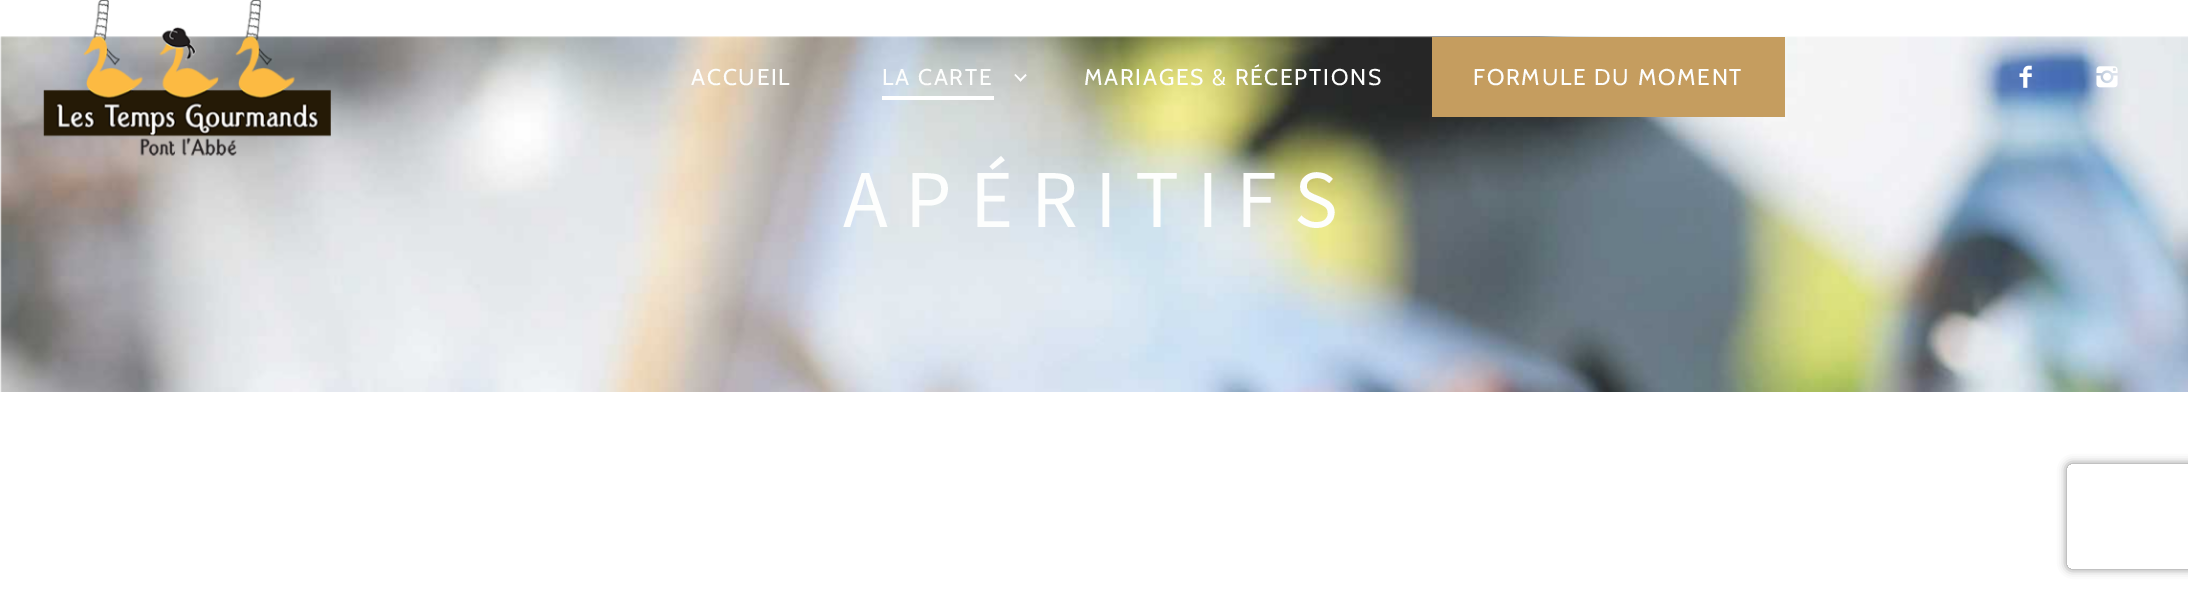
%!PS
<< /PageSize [2188 592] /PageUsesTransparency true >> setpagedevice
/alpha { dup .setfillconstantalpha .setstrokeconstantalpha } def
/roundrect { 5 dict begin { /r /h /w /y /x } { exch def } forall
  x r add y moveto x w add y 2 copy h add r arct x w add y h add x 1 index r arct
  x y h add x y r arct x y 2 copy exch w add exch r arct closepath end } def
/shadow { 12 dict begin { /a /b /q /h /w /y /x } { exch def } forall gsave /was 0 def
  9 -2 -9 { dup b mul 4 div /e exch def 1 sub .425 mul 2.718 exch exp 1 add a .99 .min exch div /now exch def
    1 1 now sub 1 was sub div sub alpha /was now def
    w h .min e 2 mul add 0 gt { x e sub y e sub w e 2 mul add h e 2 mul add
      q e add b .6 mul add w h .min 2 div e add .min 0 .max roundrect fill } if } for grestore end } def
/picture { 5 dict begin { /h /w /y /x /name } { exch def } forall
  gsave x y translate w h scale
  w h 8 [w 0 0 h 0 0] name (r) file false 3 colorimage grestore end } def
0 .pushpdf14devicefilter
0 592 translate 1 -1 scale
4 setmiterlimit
1 setgray
0 0 2188 592 rectfill
(img1.rgb) 0 36 2188 356 picture
(img2.rgb) 43 0 288 156 picture
/Cabin-Regular [22.75 0 0 -22.75 0 0] selectfont
0.992 0.996 0.992 setrgbcolor
691 85 moveto 1.75 0 (ACCUEIL) ashow
882 85 moveto 1.75 0 (LA CARTE) ashow
1 setgray
882 96 112 4 rectfill
newpath 1025.5 74 moveto 1026.5 75.5 lineto 1020.5 81.5 lineto 1019.5 80 lineto closepath fill
newpath 1015.5 74 moveto 1021.5 80 lineto 1020.5 81.5 lineto 1014.5 75 lineto closepath fill
0.992 0.996 0.992 setrgbcolor
1084 85 moveto 1.75 0 (MARIAGES & RÉCEPTIONS) ashow
0.773 0.616 0.373 setrgbcolor
1432 37 353 80 rectfill
0.992 0.996 0.992 setrgbcolor
1473 85 moveto 1.75 0 (FORMULE DU MOMENT) ashow
(img3.rgb) 2019 65 13 23 picture
(img4.rgb) 2096 66 22 22 picture
/SourceSansPro-Regular [82.25 0 0 -82.25 0 0] selectfont
843 227 moveto 17.75 0 (APÉRITIFS) ashow
gsave
newpath 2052 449 moveto 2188 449 lineto 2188 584 lineto 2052 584 lineto closepath 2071 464 moveto 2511 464 lineto 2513 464 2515 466 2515 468 curveto 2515 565 lineto 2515 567 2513 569 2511 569 curveto 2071 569 lineto 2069 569 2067 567 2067 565 curveto 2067 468 lineto 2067 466 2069 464 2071 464 curveto closepath eoclip newpath
0.502 setgray
2067 464 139 105 4 4.5 1 shadow
grestore
.poppdf14devicefilter showpage
